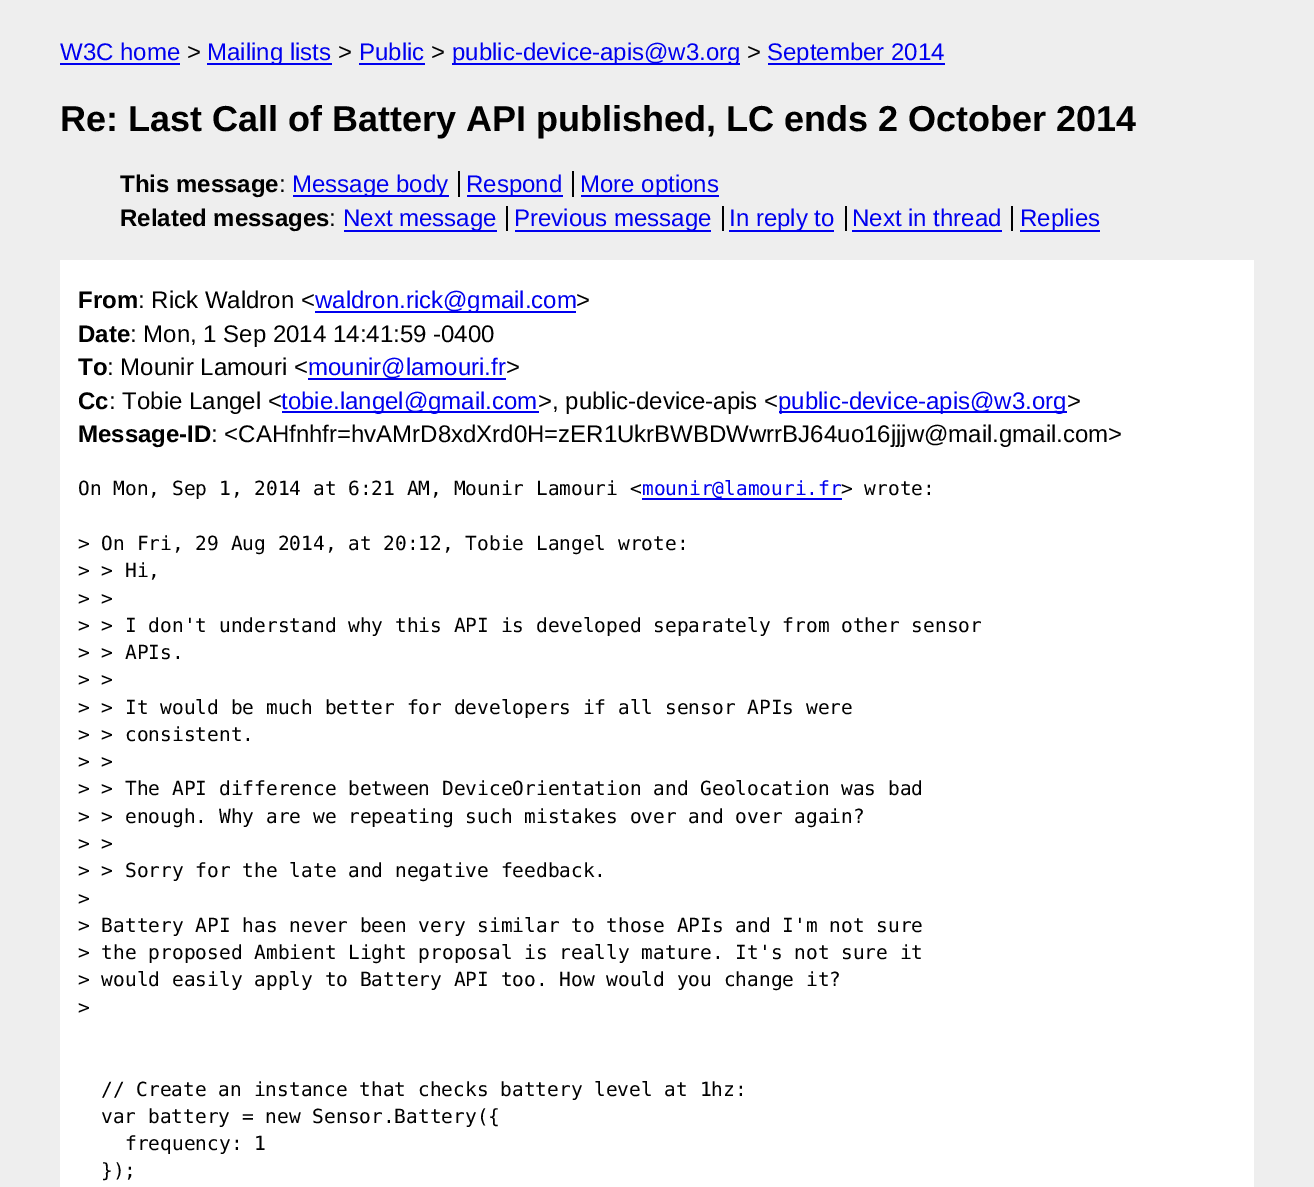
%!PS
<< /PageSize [1314 1187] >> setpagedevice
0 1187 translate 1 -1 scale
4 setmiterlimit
0.933 setgray
0 0 1314 1187 rectfill
/LiberationSans-Regular [24 0 0 -24 0 0] selectfont
0 0 0.933 setrgbcolor
60 60 moveto (W3C home) show
60 63 120 2 rectfill
0 setgray
187 60 moveto (>) show
0 0 0.933 setrgbcolor
207 63 125 2 rectfill
207 60 moveto (Mailing lists) show
0 setgray
338 60 moveto (>) show
0 0 0.933 setrgbcolor
359 60 moveto (Public) show
359 63 66 2 rectfill
0 setgray
431 60 moveto (>) show
0 0 0.933 setrgbcolor
452 63 288 2 rectfill
452 60 moveto (public-device-apis@w3.org) show
0 setgray
747 60 moveto (>) show
0 0 0.933 setrgbcolor
768 63 177 2 rectfill
767 60 moveto (September 2014) show
/LiberationSans-Bold [36 0 0 -36 0 0] selectfont
0 setgray
60 131 moveto (Re: Last Call of Battery API published, LC ends 2 October 2014) show
/LiberationSans-Bold [24 0 0 -24 0 0] selectfont
120 192 moveto (This message) show
/LiberationSans-Regular [24 0 0 -24 0 0] selectfont
279 192 moveto (:) show
0 0 0.933 setrgbcolor
293 195 156 2 rectfill
292 192 moveto (Message body) show
467 195 96 2 rectfill
466 192 moveto (Respond) show
0 setgray
458 171 2 26 rectfill
0 0 0.933 setrgbcolor
581 195 138 2 rectfill
580 192 moveto (More options) show
0 setgray
572 171 2 26 rectfill
/LiberationSans-Bold [24 0 0 -24 0 0] selectfont
120 226 moveto (Related messages) show
/LiberationSans-Regular [24 0 0 -24 0 0] selectfont
329 226 moveto (:) show
0 0 0.933 setrgbcolor
344 230 153 2 rectfill
343 226 moveto (Next message) show
515 230 196 2 rectfill
514 226 moveto (Previous message) show
0 setgray
506 206 2 25 rectfill
0 0 0.933 setrgbcolor
729 230 105 2 rectfill
729 226 moveto (In reply to) show
0 setgray
722 206 2 25 rectfill
0 0 0.933 setrgbcolor
852 226 moveto (Next in thread) show
0 setgray
845 206 2 25 rectfill
0 0 0.933 setrgbcolor
852 230 150 2 rectfill
1020 230 80 2 rectfill
1020 226 moveto (Replies) show
0 setgray
1011 206 2 25 rectfill
1 setgray
60 260 1194 927 rectfill
/LiberationSans-Bold [24 0 0 -24 0 0] selectfont
0 setgray
78 308 moveto (From) show
/LiberationSans-Regular [24 0 0 -24 0 0] selectfont
138 308 moveto (: Rick Waldron <) show
0 0 0.933 setrgbcolor
315 311 261 2 rectfill
315 308 moveto (waldron.rick@gmail.com) show
0 setgray
576 308 moveto (>) show
/LiberationSans-Bold [24 0 0 -24 0 0] selectfont
78 342 moveto (Date) show
/LiberationSans-Regular [24 0 0 -24 0 0] selectfont
130 342 moveto (: Mon, 1 Sep 2014 14:41:59 -0400) show
/LiberationSans-Bold [24 0 0 -24 0 0] selectfont
78 375 moveto (To) show
/LiberationSans-Regular [24 0 0 -24 0 0] selectfont
107 375 moveto (: Mounir Lamouri <) show
0 0 0.933 setrgbcolor
308 378 198 2 rectfill
308 375 moveto (mounir@lamouri.fr) show
0 setgray
506 375 moveto (>) show
/LiberationSans-Bold [24 0 0 -24 0 0] selectfont
78 409 moveto (Cc) show
/LiberationSans-Regular [24 0 0 -24 0 0] selectfont
109 409 moveto (: Tobie Langel <) show
0 0 0.933 setrgbcolor
282 411 257 2 rectfill
281 409 moveto (tobie.langel@gmail.com) show
0 setgray
538 409 moveto (>, public-device-apis <) show
0 0 0.933 setrgbcolor
779 411 288 2 rectfill
778 409 moveto (public-device-apis@w3.org) show
0 setgray
1067 409 moveto (>) show
/LiberationSans-Bold [24 0 0 -24 0 0] selectfont
78 442 moveto (Message-ID) show
/LiberationSans-Regular [24 0 0 -24 0 0] selectfont
211 442 moveto (: <CAHfnhfr=hvAMrD8xdXrd0H=zER1UkrBWBDWwrrBJ64uo16jjjw@mail.gmail.com>) show
/DejaVuSansMono-Regular [19.5 0 0 -19.5 0 0] selectfont
78 495 moveto (On Mon, Sep 1, 2014 at 6:21 AM, Mounir Lamouri <) show
0 0 0.933 setrgbcolor
642 498 200 2 rectfill
642 495 moveto (mounir@lamouri.fr) show
0 setgray
841 495 moveto (> wrote:) show
78 550 moveto (> On Fri, 29 Aug 2014, at 20:12, Tobie Langel wrote:) show
78 577 moveto (> > Hi,) show
78 605 moveto (> >) show
78 632 moveto (> > I don't understand why this API is developed separately from other sensor) show
78 659 moveto (> > APIs.) show
78 686 moveto (> >) show
78 714 moveto (> > It would be much better for developers if all sensor APIs were) show
78 741 moveto (> > consistent.) show
78 768 moveto (> >) show
78 795 moveto (> > The API difference between DeviceOrientation and Geolocation was bad) show
78 823 moveto (> > enough. Why are we repeating such mistakes over and over again?) show
78 850 moveto (> >) show
78 877 moveto (> > Sorry for the late and negative feedback.) show
78 905 moveto (>) show
78 932 moveto (> Battery API has never been very similar to those APIs and I'm not sure) show
78 959 moveto (> the proposed Ambient Light proposal is really mature. It's not sure it) show
78 986 moveto (> would easily apply to Battery API too. How would you change it?) show
78 1014 moveto (>) show
101 1096 moveto (// Create an instance that checks battery level at 1hz:) show
101 1123 moveto (var battery = new Sensor.Battery\({) show
125 1150 moveto (frequency: 1) show
101 1177 moveto (}\);) show
showpage
